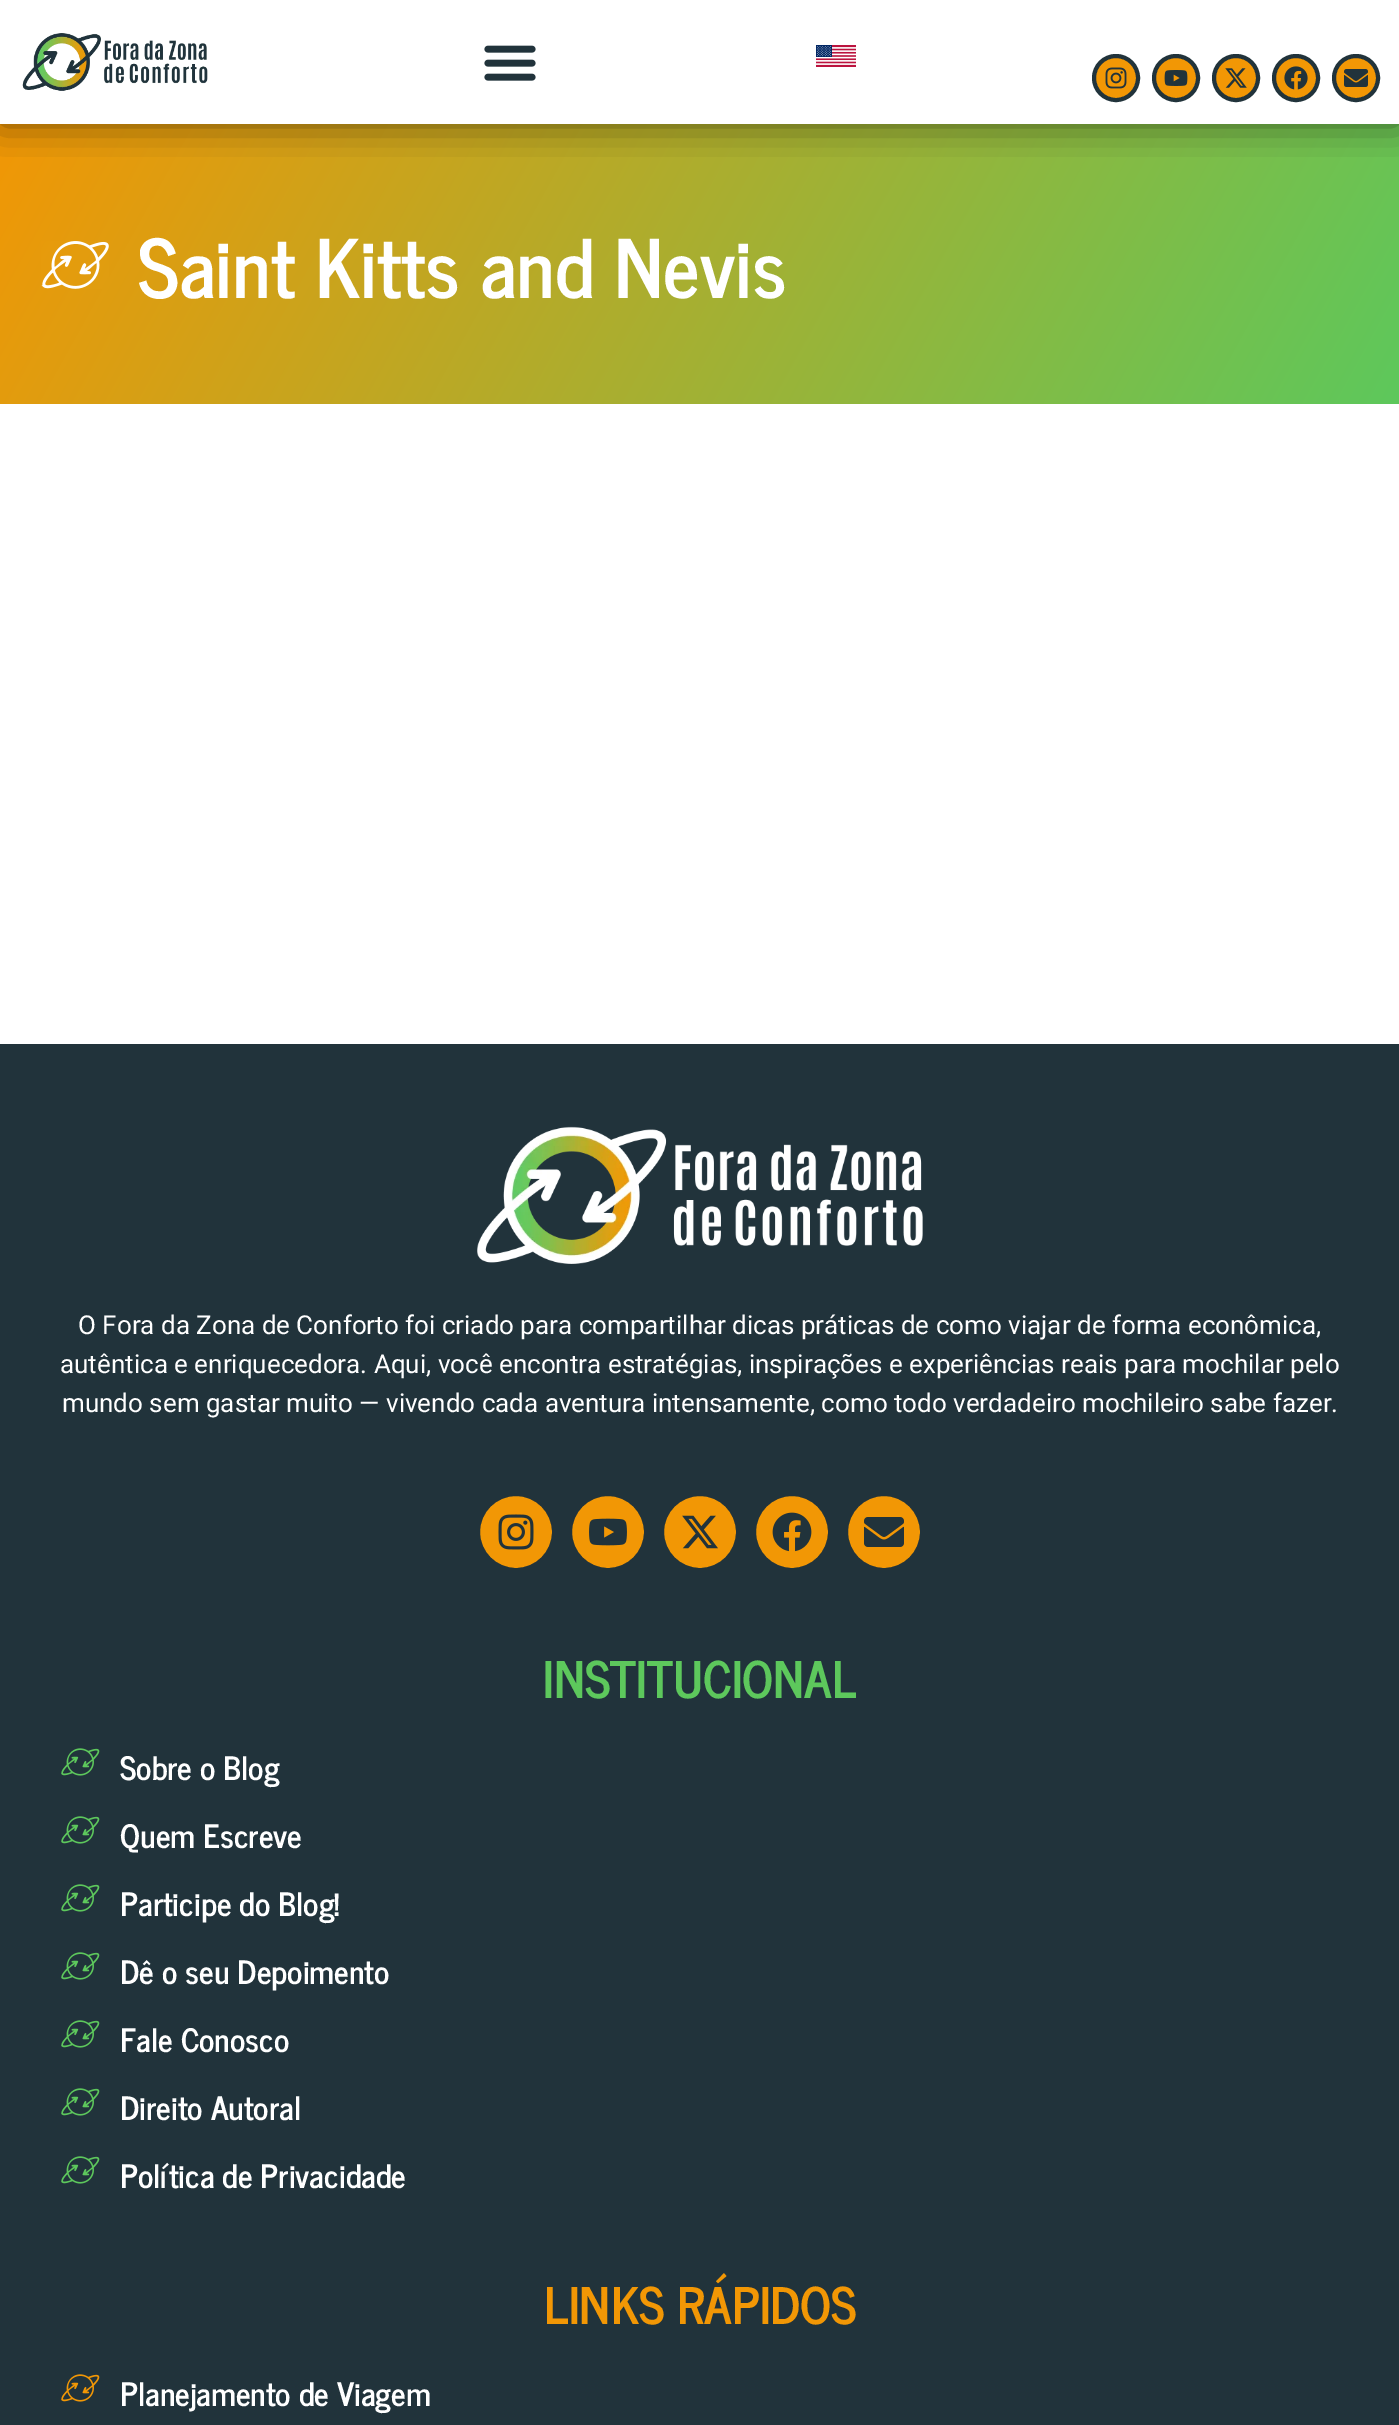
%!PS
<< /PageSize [1399 2425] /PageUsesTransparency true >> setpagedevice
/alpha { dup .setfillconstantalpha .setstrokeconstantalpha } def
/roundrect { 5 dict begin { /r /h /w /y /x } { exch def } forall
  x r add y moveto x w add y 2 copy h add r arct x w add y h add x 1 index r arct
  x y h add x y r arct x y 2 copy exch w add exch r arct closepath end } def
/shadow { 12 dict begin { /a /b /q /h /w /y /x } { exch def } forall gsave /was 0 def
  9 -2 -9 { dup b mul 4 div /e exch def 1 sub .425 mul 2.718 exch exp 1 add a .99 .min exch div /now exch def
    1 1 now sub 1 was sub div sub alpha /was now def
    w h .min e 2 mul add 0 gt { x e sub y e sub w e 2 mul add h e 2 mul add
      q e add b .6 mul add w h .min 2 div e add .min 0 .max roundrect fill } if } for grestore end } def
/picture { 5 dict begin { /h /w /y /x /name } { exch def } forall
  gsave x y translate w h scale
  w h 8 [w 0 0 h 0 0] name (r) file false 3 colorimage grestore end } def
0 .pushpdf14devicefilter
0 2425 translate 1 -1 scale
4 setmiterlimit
1 setgray
0 0 1399 2425 rectfill
gsave newpath 0 124 moveto 1399 124 lineto 1399 404 lineto 0 404 lineto closepath clip newpath
<< /ShadingType 2 /ColorSpace /DeviceRGB /Coords [1295 594 105 -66] /Extend [true true] /Function << /FunctionType 2 /Domain [0 1] /C0 [0.365 0.784 0.361] /C1 [0.949 0.592 0.02] /N 1 >> >> shfill grestore
gsave
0 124 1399 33 rectclip
0 setgray
0 0 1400 124 0 19 0.5 shadow
grestore
(img1.rgb) 22 33 186 58 picture
(img2.rgb) 484 45 52 36 picture
(img3.rgb) 816 45 40 22 picture
0.949 0.592 0.02 setrgbcolor
newpath 1116 78 22 0 360 arc closepath gsave fill grestore
0.129 0.2 0.231 setrgbcolor
4 setlinewidth
stroke
(img4.rgb) 1105 67 22 22 picture
0.949 0.592 0.02 setrgbcolor
newpath 1176 78 22 0 360 arc closepath gsave fill grestore
0.129 0.2 0.231 setrgbcolor
stroke
(img5.rgb) 1164 70 24 16 picture
0.949 0.592 0.02 setrgbcolor
newpath 1236 78 22 0 360 arc closepath gsave fill grestore
0.129 0.2 0.231 setrgbcolor
stroke
(img6.rgb) 1225 68 22 20 picture
0.949 0.592 0.02 setrgbcolor
newpath 1296 78 22 0 360 arc closepath gsave fill grestore
0.129 0.2 0.231 setrgbcolor
stroke
(img7.rgb) 1284 66 24 24 picture
0.949 0.592 0.02 setrgbcolor
newpath 1356 78 22 0 360 arc closepath gsave fill grestore
0.129 0.2 0.231 setrgbcolor
stroke
(img8.rgb) 1344 69 24 18 picture
(img9.rgb) 41 241 68 48 picture
/NewsCycle-Bold [80 0 0 -80 0 0] selectfont
1 setgray
138 298 moveto (Saint Kitts and Nevis) show
0.129 0.2 0.231 setrgbcolor
0 1044 1399 1381 rectfill
(img10.rgb) 477 1126 446 138 picture
/Roboto-Regular [26 0 0 -26 0 0] selectfont
1 setgray
78 1334 moveto (O Fora da Zona de Conforto foi criado para compartilhar dicas práticas de como viajar de forma econômica,) show
60 1373 moveto (autêntica e enriquecedora. Aqui, você encontra estratégias, inspirações e experiências reais para mochilar pelo) show
62 1412 moveto (mundo sem gastar muito — vivendo cada aventura intensamente, como todo verdadeiro mochileiro sabe fazer.) show
0.949 0.592 0.02 setrgbcolor
newpath 516 1532 38 0 360 arc closepath gsave fill grestore
0.129 0.2 0.231 setrgbcolor
stroke
(img11.rgb) 498 1514 36 36 picture
0.949 0.592 0.02 setrgbcolor
newpath 608 1532 38 0 360 arc closepath gsave fill grestore
0.129 0.2 0.231 setrgbcolor
stroke
(img12.rgb) 589 1518 38 28 picture
0.949 0.592 0.02 setrgbcolor
newpath 700 1532 38 0 360 arc closepath gsave fill grestore
0.129 0.2 0.231 setrgbcolor
stroke
(img13.rgb) 682 1515 36 34 picture
0.949 0.592 0.02 setrgbcolor
newpath 792 1532 38 0 360 arc closepath gsave fill grestore
0.129 0.2 0.231 setrgbcolor
stroke
(img14.rgb) 772 1512 40 40 picture
0.949 0.592 0.02 setrgbcolor
newpath 884 1532 38 0 360 arc closepath gsave fill grestore
0.129 0.2 0.231 setrgbcolor
stroke
(img15.rgb) 864 1517 40 30 picture
/NewsCycle-Bold [50 0 0 -50 0 0] selectfont
0.365 0.784 0.361 setrgbcolor
543 1698 moveto (INSTITUCIONAL) show
(img16.rgb) 61 1748 39 28 picture
/NewsCycle-Bold [32 0 0 -32 0 0] selectfont
1 setgray
120 1780 moveto (Sobre o Blog) show
(img16.rgb) 61 1816 39 28 picture
120 1848 moveto (Quem Escreve) show
(img16.rgb) 61 1884 39 28 picture
120 1916 moveto (Participe do Blog!) show
(img16.rgb) 61 1952 39 28 picture
120 1984 moveto (Dê o seu Depoimento) show
(img16.rgb) 61 2020 39 28 picture
120 2052 moveto (Fale Conosco) show
(img16.rgb) 61 2088 39 28 picture
120 2120 moveto (Direito Autoral) show
(img16.rgb) 61 2156 39 28 picture
120 2188 moveto (Política de Privacidade) show
/NewsCycle-Bold [50 0 0 -50 0 0] selectfont
0.949 0.592 0.02 setrgbcolor
544 2324 moveto (LINKS RÁPIDOS) show
(img17.rgb) 61 2374 39 28 picture
/NewsCycle-Bold [32 0 0 -32 0 0] selectfont
1 setgray
120 2406 moveto (Planejamento de Viagem) show
.poppdf14devicefilter showpage
